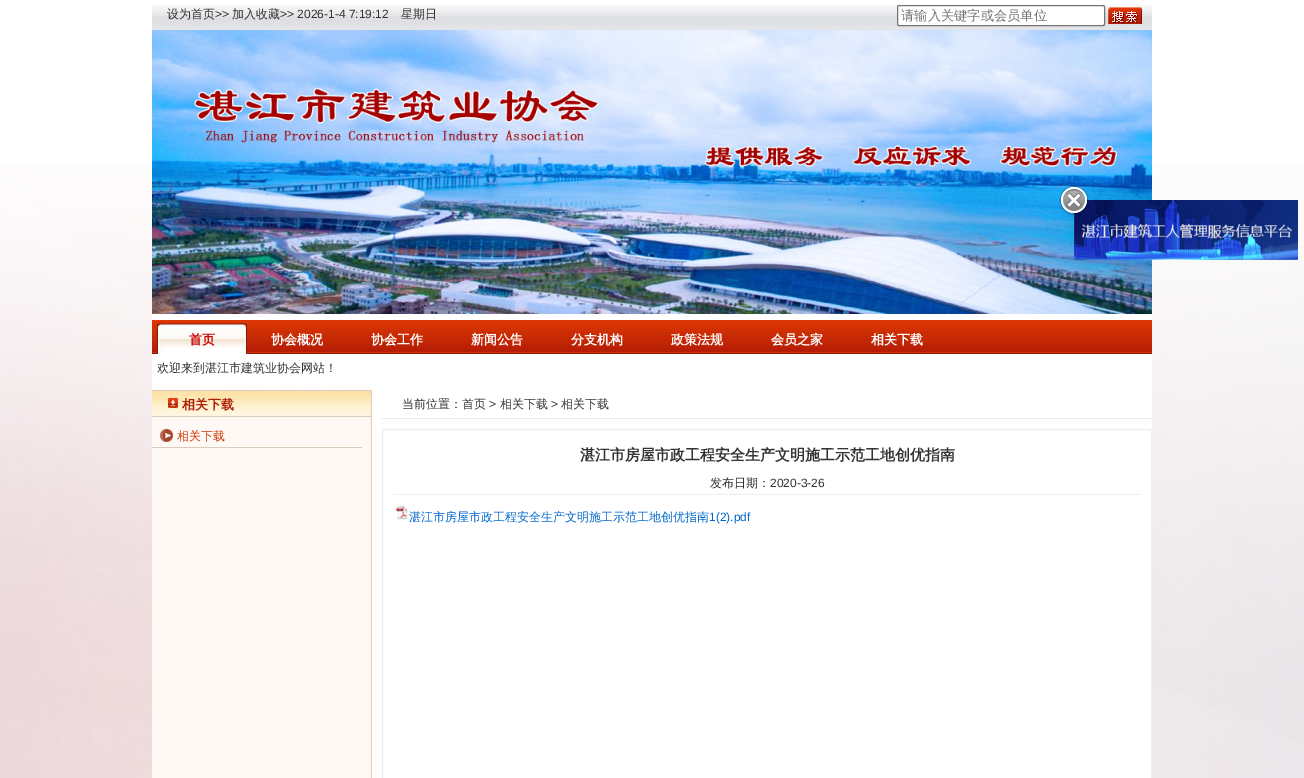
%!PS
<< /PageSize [1304 778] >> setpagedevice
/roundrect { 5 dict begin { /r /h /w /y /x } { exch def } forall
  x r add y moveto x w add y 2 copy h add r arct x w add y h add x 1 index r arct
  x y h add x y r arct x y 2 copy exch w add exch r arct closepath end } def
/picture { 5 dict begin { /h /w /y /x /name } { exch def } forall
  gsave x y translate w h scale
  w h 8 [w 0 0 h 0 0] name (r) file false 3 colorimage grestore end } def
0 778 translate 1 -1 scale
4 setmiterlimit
1 setgray
0 0 1304 778 rectfill
(img1.rgb) 0 164 1304 614 picture
152 164 1000 614 rectfill
(img2.rgb) 152 4 1000 26 picture
/WenQuanYiZenHei-Medium [12 0 0 -12 0 0] selectfont
0.2 setgray
167 18 moveto (设为首页) show
/LiberationSans-Regular [12 0 0 -12 0 0] selectfont
215 18 moveto (>>) show
/WenQuanYiZenHei-Medium [12 0 0 -12 0 0] selectfont
232 18 moveto (加入收藏) show
/LiberationSans-Regular [12 0 0 -12 0 0] selectfont
280 18 moveto (>> 2026-1-4 7:19:12) show
/WenQuanYiZenHei-Medium [12 0 0 -12 0 0] selectfont
401 18 moveto (星期日) show
1 setgray
897.5 5.5 207 20 1.5 roundrect gsave fill grestore
0.463 setgray
stroke
/WenQuanYiZenHei-Medium [13.25 0 0 -13.25 0 0] selectfont
0.459 setgray
901 20 moveto (请输入关键字或会员单位) show
(img3.rgb) 1108 7 34 17 picture
(img4.rgb) 152 30 1000 284 picture
(img5.rgb) 152 320 1000 34 picture
(img6.rgb) 157 320 90 34 picture
/WenQuanYiZenHei-Bold [13 0 0 -13 0 0] selectfont
0.8 0 0 setrgbcolor
189 344 moveto (首页) show
/WenQuanYiZenHei-Medium [12 0 0 -12 0 0] selectfont
0.2 setgray
157 372 moveto (欢迎来到湛江市建筑业协会网站！) show
/WenQuanYiZenHei-Bold [13 0 0 -13 0 0] selectfont
1 setgray
271 344 moveto (协会概况) show
371 344 moveto (协会工作) show
471 344 moveto (新闻公告) show
571 344 moveto (分支机构) show
671 344 moveto (政策法规) show
771 344 moveto (会员之家) show
871 344 moveto (相关下载) show
(img7.rgb) 152 417 220 361 picture
(img8.rgb) 152 390 220 27 picture
0.682 0.11 0.012 setrgbcolor
182 409 moveto (相关下载) show
(img9.rgb) 152 429 210 19 picture
/WenQuanYiZenHei-Medium [12 0 0 -12 0 0] selectfont
0.827 0.208 0.024 setrgbcolor
177 440 moveto (相关下载) show
0.925 setgray
382 418 770 1 rectfill
0.2 setgray
402 408 moveto (当前位置：首页) show
/LiberationSans-Regular [12 0 0 -12 0 0] selectfont
489 408 moveto (>) show
/WenQuanYiZenHei-Medium [12 0 0 -12 0 0] selectfont
500 408 moveto (相关下载) show
/LiberationSans-Regular [12 0 0 -12 0 0] selectfont
551 408 moveto (>) show
/WenQuanYiZenHei-Medium [12 0 0 -12 0 0] selectfont
561 408 moveto (相关下载) show
0.933 setgray
382.5 429.5 769 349 rectstroke
/WenQuanYiZenHei-Bold [15 0 0 -15 0 0] selectfont
0.2 setgray
580 460 moveto (湛江市房屋市政工程安全生产文明施工示范工地创优指南) show
0.933 setgray
393 494 748 1 rectfill
/WenQuanYiZenHei-Medium [12 0 0 -12 0 0] selectfont
0.2 setgray
710 487 moveto (发布日期：) show
/LiberationSans-Regular [12 0 0 -12 0 0] selectfont
770 487 moveto (2020-3-26) show
(img10.rgb) 396 505 12 15 picture
/WenQuanYiZenHei-Medium [12 0 0 -12 0 0] selectfont
0 0.4 0.8 setrgbcolor
409 521 moveto (湛江市房屋市政工程安全生产文明施工示范工地创优指南) show
/LiberationSans-Regular [12 0 0 -12 0 0] selectfont
709 521 moveto (1\(2\).pdf) show
(img12.rgb) 1074 200 224 60 picture
(img11.rgb) 1059 186 30 31 picture
showpage
